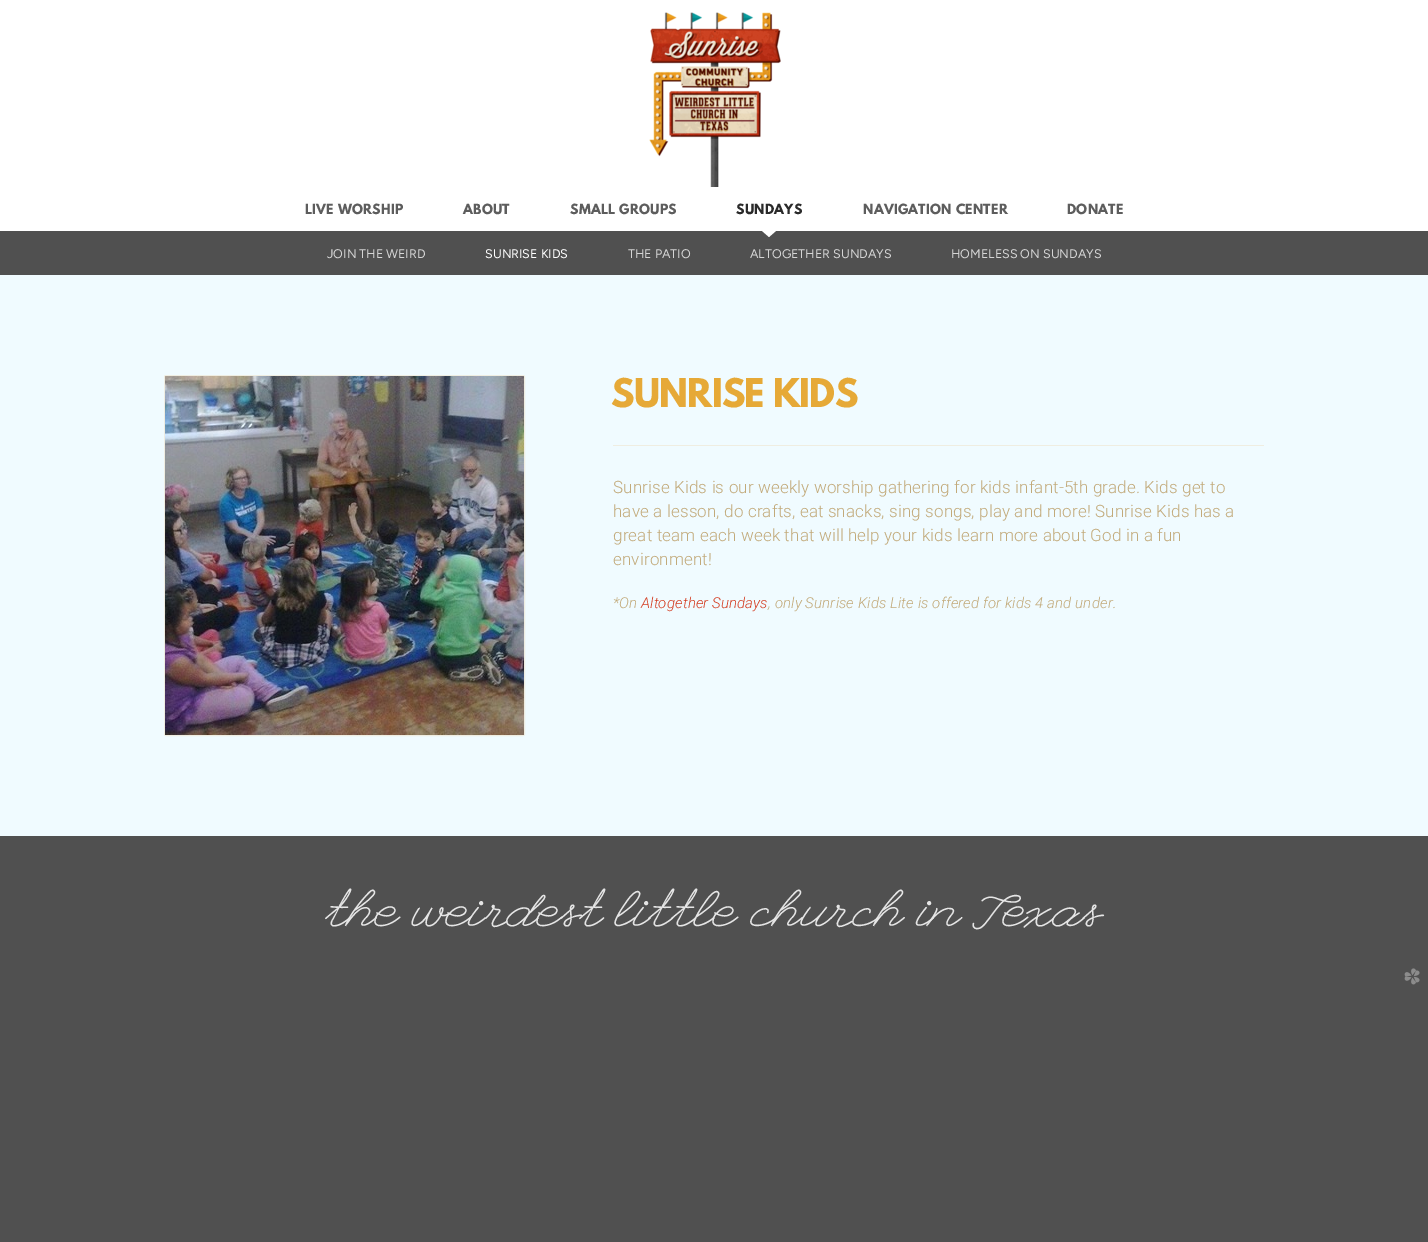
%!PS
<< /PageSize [1428 1242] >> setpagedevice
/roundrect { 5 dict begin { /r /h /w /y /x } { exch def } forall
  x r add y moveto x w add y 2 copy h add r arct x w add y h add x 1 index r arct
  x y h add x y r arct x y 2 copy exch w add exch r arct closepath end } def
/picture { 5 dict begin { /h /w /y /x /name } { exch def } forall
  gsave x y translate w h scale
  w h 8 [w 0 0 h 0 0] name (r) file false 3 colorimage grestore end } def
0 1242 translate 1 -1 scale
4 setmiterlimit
0.314 setgray
0 0 1428 1242 rectfill
1 setgray
0 0 1428 231 rectfill
(img1.rgb) 649 12 132 175 picture
/LeagueSpartan-Bold [12.5 0 0 -12.5 0 0] selectfont
0.365 setgray
305 214 moveto 0.25 0 (LIVE WORSHIP) ashow
463 214 moveto 0.25 0 (ABOUT) ashow
570 214 moveto 0.25 0 (SMALL GROUPS) ashow
0.165 setgray
736 214 moveto 0.25 0 (SUNDAYS) ashow
1 setgray
newpath 761 230 moveto 777 230 lineto 769 237 lineto closepath fill
0.365 setgray
863 214 moveto 0.25 0 (NAVIGATION CENTER) ashow
1067 214 moveto 0.25 0 (DONATE) ashow
/Figtree-Light [12.5 0 0 -12.5 0 0] selectfont
0.835 setgray
327 258 moveto (JOIN THE WEIRD) show
1 setgray
485 258 moveto (SUNRISE KIDS) show
0.835 setgray
628 258 moveto (THE PATIO) show
750 258 moveto (ALTOGETHER SUNDAYS) show
951 258 moveto (HOMELESS ON SUNDAYS) show
0.941 0.984 1 setrgbcolor
0 275 1428 561 rectfill
0.937 0.929 0.882 setrgbcolor
164.5 375.5 360 360 1.5 roundrect stroke
(img2.rgb) 165 376 359 359 picture
613 445 651 1 rectfill
/LeagueSpartan-Bold [35 0 0 -35 0 0] selectfont
0.902 0.663 0.216 setrgbcolor
611 407 moveto -0.75 0 (SUNRISE KIDS) ashow
/Roboto-Light [17 0 0 -17 0 0] selectfont
0.761 0.667 0.478 setrgbcolor
613 493 moveto 0.15 0 (Sunrise Kids is our weekly worship gathering for kids infant-5th grade. Kids get to) ashow
613 517 moveto 0.15 0 (have a lesson, do crafts, eat snacks, sing songs, play and more! Sunrise Kids has a) ashow
613 541 moveto 0.15 0 (great team each week that will help your kids learn more about God in a fun) ashow
613 565 moveto 0.15 0 (environment!) ashow
/Roboto-LightItalic [15 0 0 -15 0 0] selectfont
613 608 moveto 0.15 0 (*On) ashow
0.831 0.239 0.133 setrgbcolor
641 608 moveto 0.15 0 (Altogether Sundays) ashow
0.761 0.667 0.478 setrgbcolor
768 608 moveto 0.15 0 (, only Sunrise Kids Lite is offered for kids 4 and under.) ashow
/LeagueScript-Bold [34 0 0 -34 0 0] selectfont
0.898 setgray
326 926 moveto 0.15 0 (the weirdest little church in Texas) ashow
(img3.rgb) 1404 968 16 17 picture
showpage
